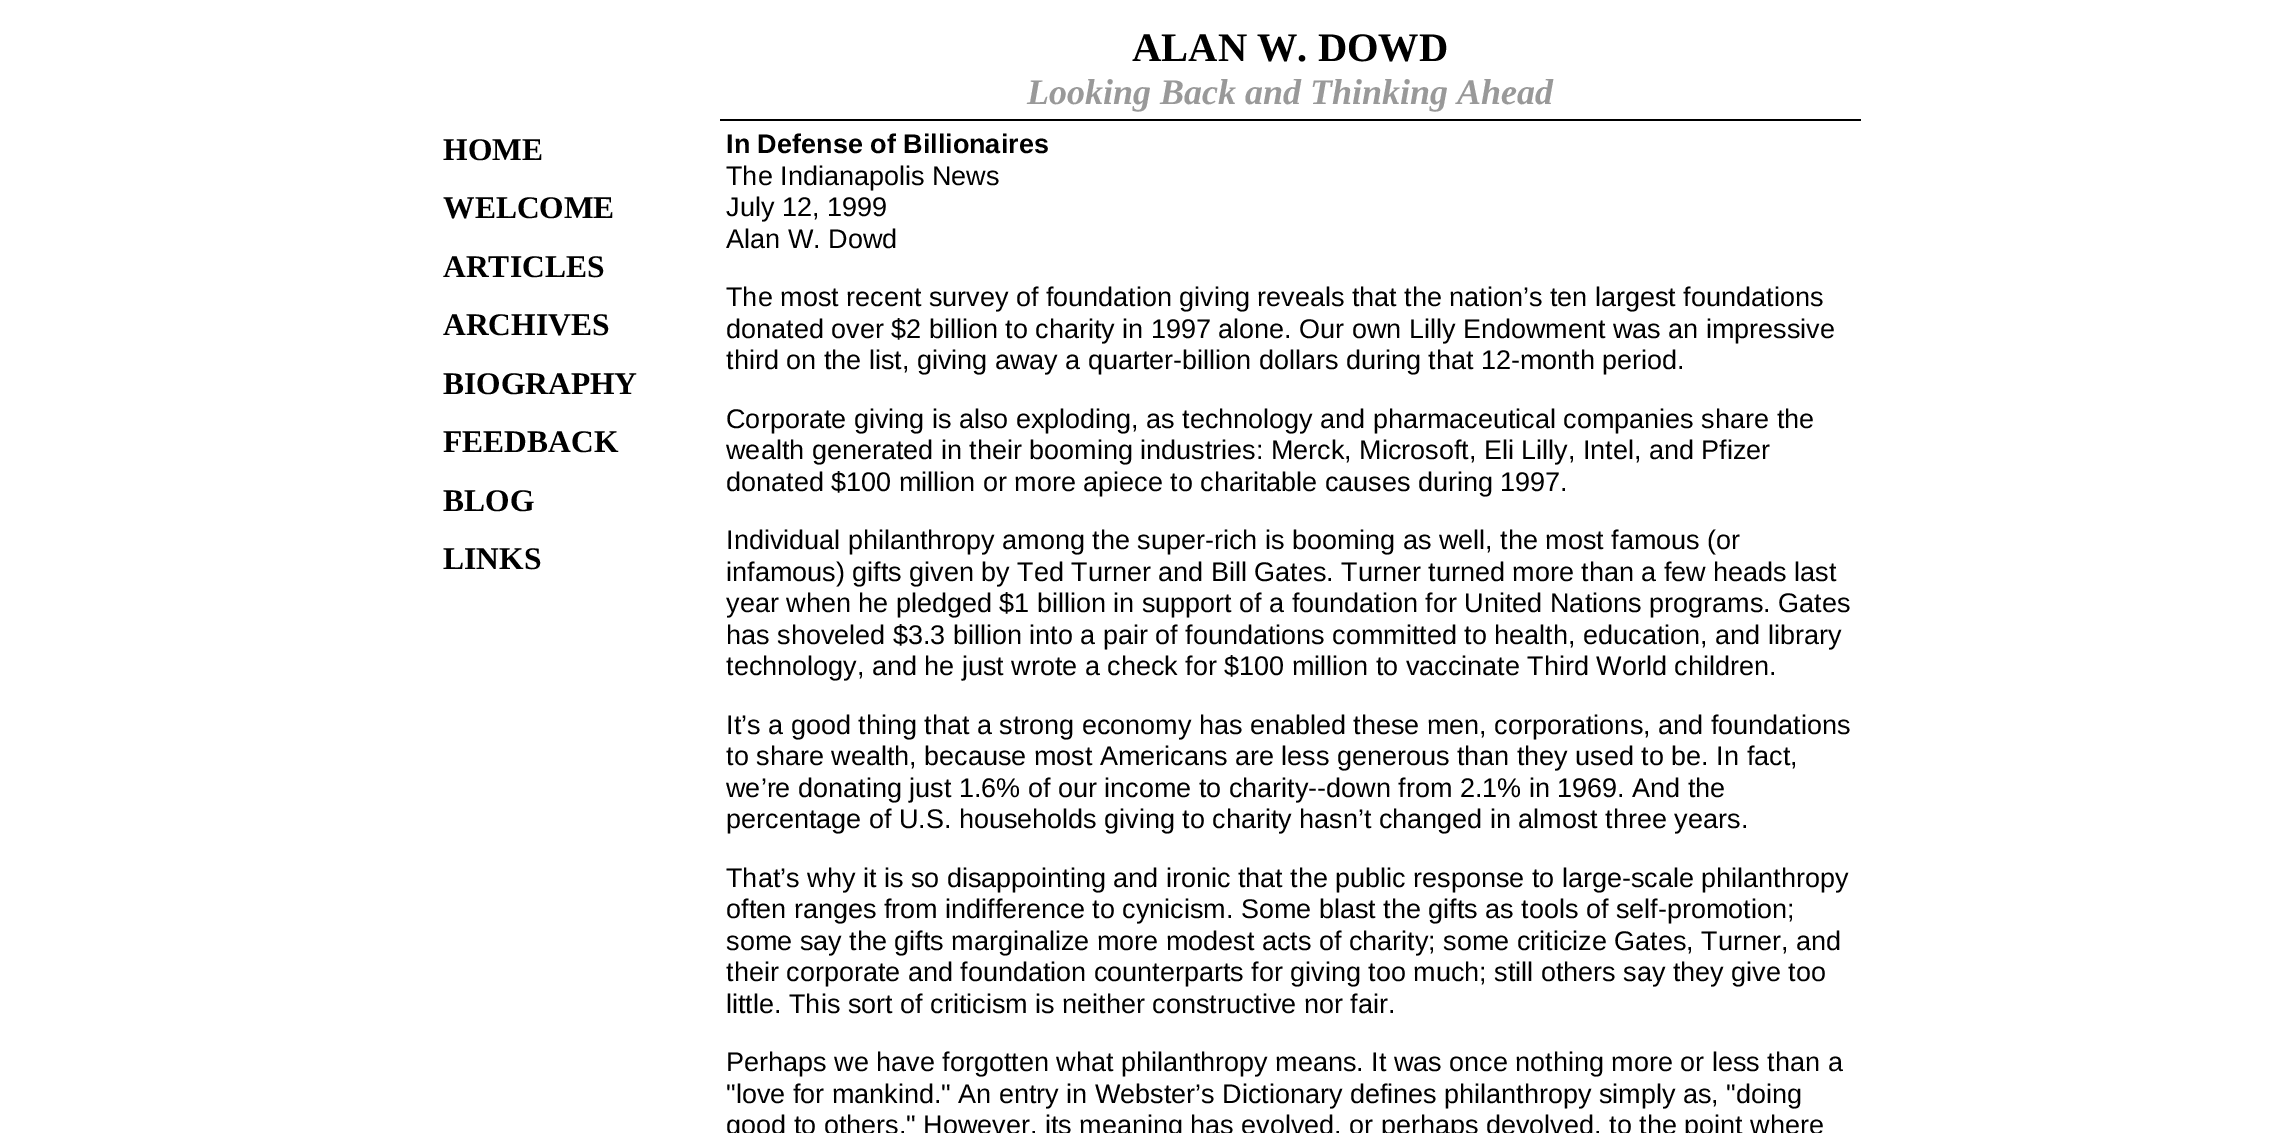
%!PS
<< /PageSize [2289 1133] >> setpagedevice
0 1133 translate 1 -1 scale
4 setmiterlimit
1 setgray
0 0 2289 1133 rectfill
/LiberationSerif-Bold [40.5 0 0 -40.5 0 0] selectfont
0 setgray
1132 61 moveto (ALAN W. DOWD) show
/LiberationSerif-BoldItalic [36 0 0 -36 0 0] selectfont
0.6 setgray
1027 104 moveto (Looking Back and Thinking Ahead) show
/LiberationSerif-Bold [31.5 0 0 -31.5 0 0] selectfont
0 setgray
443 160 moveto (HOME) show
443 218 moveto (WELCOME) show
443 277 moveto (ARTICLES) show
443 335 moveto (ARCHIVES) show
443 394 moveto (BIOGRAPHY) show
443 452 moveto (FEEDBACK) show
443 511 moveto (BLOG) show
443 569 moveto (LINKS) show
720 119 1141 2 rectfill
/LiberationSans-Bold [27 0 0 -27 0 0] selectfont
726 153 moveto (In Defense of Billionaires) show
/LiberationSans-Regular [27 0 0 -27 0 0] selectfont
726 185 moveto (The Indianapolis News) show
726 216 moveto (July 12, 1999) show
726 248 moveto (Alan W. Dowd) show
726 306 moveto (The most recent survey of foundation giving reveals that the nation’s ten largest foundations) show
726 338 moveto (donated over $2 billion to charity in 1997 alone. Our own Lilly Endowment was an impressive) show
726 369 moveto (third on the list, giving away a quarter-billion dollars during that 12-month period.) show
726 428 moveto (Corporate giving is also exploding, as technology and pharmaceutical companies share the) show
726 459 moveto (wealth generated in their booming industries: Merck, Microsoft, Eli Lilly, Intel, and Pfizer) show
726 491 moveto (donated $100 million or more apiece to charitable causes during 1997.) show
726 549 moveto (Individual philanthropy among the super-rich is booming as well, the most famous \(or) show
726 581 moveto (infamous\) gifts given by Ted Turner and Bill Gates. Turner turned more than a few heads last) show
726 612 moveto (year when he pledged $1 billion in support of a foundation for United Nations programs. Gates) show
726 644 moveto (has shoveled $3.3 billion into a pair of foundations committed to health, education, and library) show
726 675 moveto (technology, and he just wrote a check for $100 million to vaccinate Third World children.) show
726 734 moveto (It’s a good thing that a strong economy has enabled these men, corporations, and foundations) show
726 765 moveto (to share wealth, because most Americans are less generous than they used to be. In fact,) show
726 797 moveto (we’re donating just 1.6% of our income to charity--down from 2.1% in 1969. And the) show
726 828 moveto (percentage of U.S. households giving to charity hasn’t changed in almost three years.) show
726 887 moveto (That’s why it is so disappointing and ironic that the public response to large-scale philanthropy) show
726 918 moveto (often ranges from indifference to cynicism. Some blast the gifts as tools of self-promotion;) show
726 950 moveto (some say the gifts marginalize more modest acts of charity; some criticize Gates, Turner, and) show
726 981 moveto (their corporate and foundation counterparts for giving too much; still others say they give too) show
726 1013 moveto (little. This sort of criticism is neither constructive nor fair.) show
726 1071 moveto (Perhaps we have forgotten what philanthropy means. It was once nothing more or less than a) show
726 1103 moveto ("love for mankind." An entry in Webster’s Dictionary defines philanthropy simply as, "doing) show
726 1134 moveto (good to others." However, its meaning has evolved, or perhaps devolved, to the point where) show
showpage
